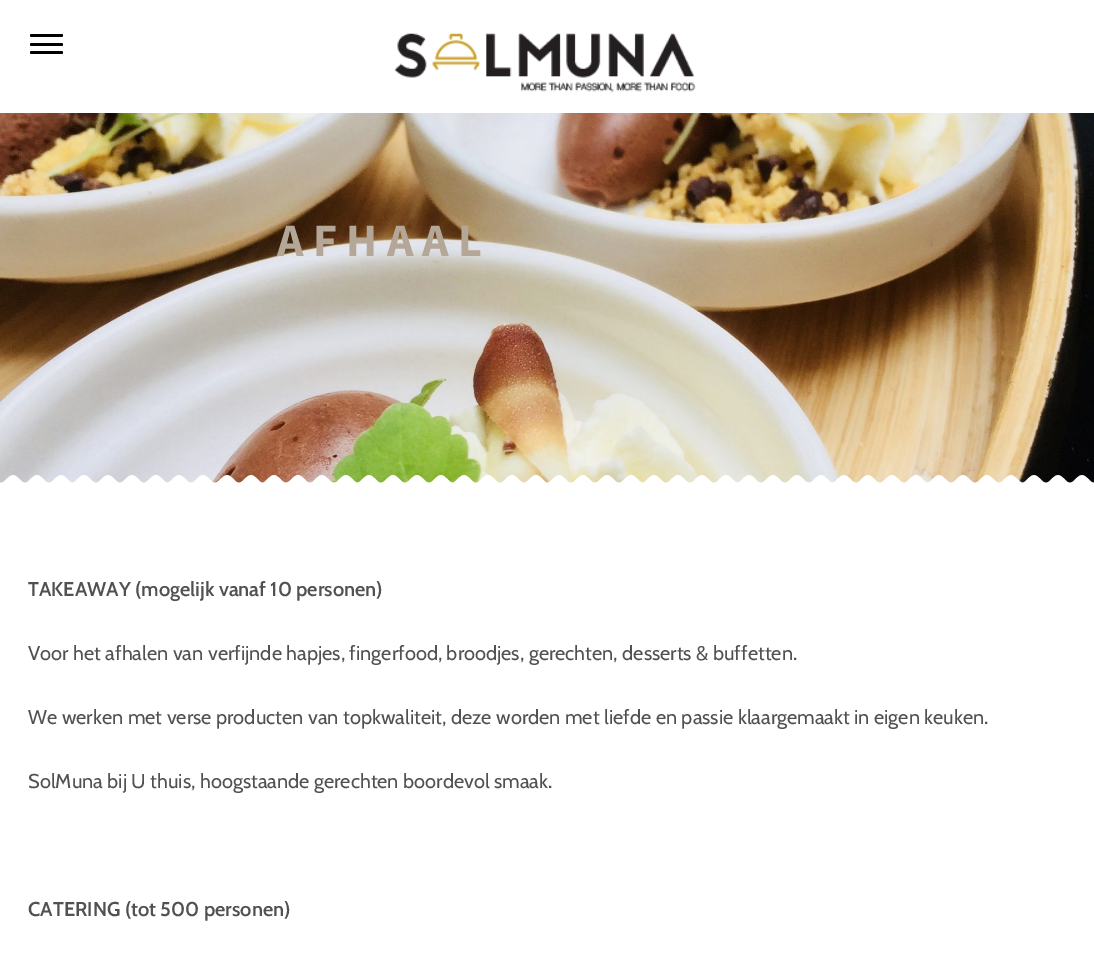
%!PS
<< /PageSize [1094 966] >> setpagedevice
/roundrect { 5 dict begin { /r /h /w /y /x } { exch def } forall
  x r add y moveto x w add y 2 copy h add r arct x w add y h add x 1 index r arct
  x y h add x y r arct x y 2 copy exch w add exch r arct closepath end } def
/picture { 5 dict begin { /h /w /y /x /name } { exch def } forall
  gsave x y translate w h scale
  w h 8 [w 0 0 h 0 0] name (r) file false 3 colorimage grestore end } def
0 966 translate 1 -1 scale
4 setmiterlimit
1 setgray
0 0 1094 966 rectfill
0 setgray
30 43 33 3 1.5 roundrect fill
30 34 33 3 1.5 roundrect fill
30 51 33 3 1.5 roundrect fill
(img1.rgb) 394 33 302 60 picture
(img2.rgb) 0 113 1094 370 picture
/SourceSansPro-Bold [46.25 0 0 -46.25 0 0] selectfont
0.71 0.655 0.592 setrgbcolor
277 256 moveto 9.25 0 (AFHAAL) ashow
(img3.rgb) 0 475 1094 9 picture
/Cabin-SemiBold [20 0 0 -20 0 0] selectfont
0.318 0.318 0.314 setrgbcolor
28 596 moveto (TAKEAWAY \(mogelijk vanaf 10 personen\)) show
/Cabin-Regular [20 0 0 -20 0 0] selectfont
28 660 moveto (Voor het afhalen van verfijnde hapjes, fingerfood, broodjes, gerechten, desserts & buffetten.) show
28 724 moveto (We werken met verse producten van topkwaliteit, deze worden met liefde en passie klaargemaakt in eigen keuken.) show
28 788 moveto (SolMuna bij U thuis, hoogstaande gerechten boordevol smaak.) show
/Cabin-SemiBold [20 0 0 -20 0 0] selectfont
28 916 moveto (CATERING \(tot 500 personen\)) show
showpage
